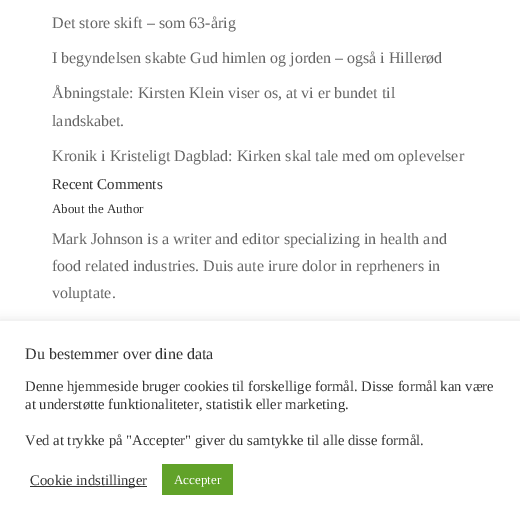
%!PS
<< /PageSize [520 525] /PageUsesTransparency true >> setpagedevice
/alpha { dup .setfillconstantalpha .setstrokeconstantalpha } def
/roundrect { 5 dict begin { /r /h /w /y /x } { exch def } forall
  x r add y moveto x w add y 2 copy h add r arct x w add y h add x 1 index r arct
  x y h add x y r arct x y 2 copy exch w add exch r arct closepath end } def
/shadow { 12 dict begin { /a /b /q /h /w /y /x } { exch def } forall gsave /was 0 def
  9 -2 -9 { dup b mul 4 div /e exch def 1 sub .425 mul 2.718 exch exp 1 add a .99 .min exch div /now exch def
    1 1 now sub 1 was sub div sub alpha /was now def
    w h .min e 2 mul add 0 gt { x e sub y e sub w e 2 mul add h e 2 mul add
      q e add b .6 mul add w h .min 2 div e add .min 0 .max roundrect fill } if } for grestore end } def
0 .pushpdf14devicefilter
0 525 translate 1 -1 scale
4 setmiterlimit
1 setgray
0 0 520 525 rectfill
/LiberationSerif-Regular [16 0 0 -16 0 0] selectfont
0.4 setgray
52 28 moveto (Det store skift – som 63-årig) show
52 63 moveto (I begyndelsen skabte Gud himlen og jorden – også i Hillerød) show
52 98 moveto (Åbningstale: Kirsten Klein viser os, at vi er bundet til) show
52 126 moveto (landskabet.) show
52 161 moveto (Kronik i Kristeligt Dagblad: Kirken skal tale med om oplevelser) show
/LiberationSerif-Regular [15 0 0 -15 0 0] selectfont
0.2 setgray
52 189 moveto (Recent Comments) show
/LiberationSerif-Regular [13 0 0 -13 0 0] selectfont
52 213 moveto (About the Author) show
/LiberationSerif-Regular [16 0 0 -16 0 0] selectfont
0.4 setgray
52 244 moveto (Mark Johnson is a writer and editor specializing in health and) show
52 271 moveto (food related industries. Duis aute irure dolor in reprheners in) show
52 298 moveto (voluptate.) show
0.675 0.671 0.671 setrgbcolor
0 320 520 204 0 5 0.3 shadow
1 setgray
0 321 520 204 rectfill
0.2 setgray
25 359 moveto (Du bestemmer over dine data) show
/LiberationSerif-Regular [14.7 0 0 -14.7 0 0] selectfont
25 391 moveto (Denne hjemmeside bruger cookies til forskellige formål. Disse formål kan være) show
25 409 moveto (at understøtte funktionaliteter, statistik eller marketing.) show
25 445 moveto (Ved at trykke på "Accepter" giver du samtykke til alle disse formål.) show
30 486 117 1 rectfill
30 485 moveto (Cookie indstillinger) show
0.38 0.635 0.161 setrgbcolor
162 464 71 31 rectfill
/LiberationSerif-Regular [13 0 0 -13 0 0] selectfont
1 setgray
174 484 moveto (Accepter) show
.poppdf14devicefilter showpage
